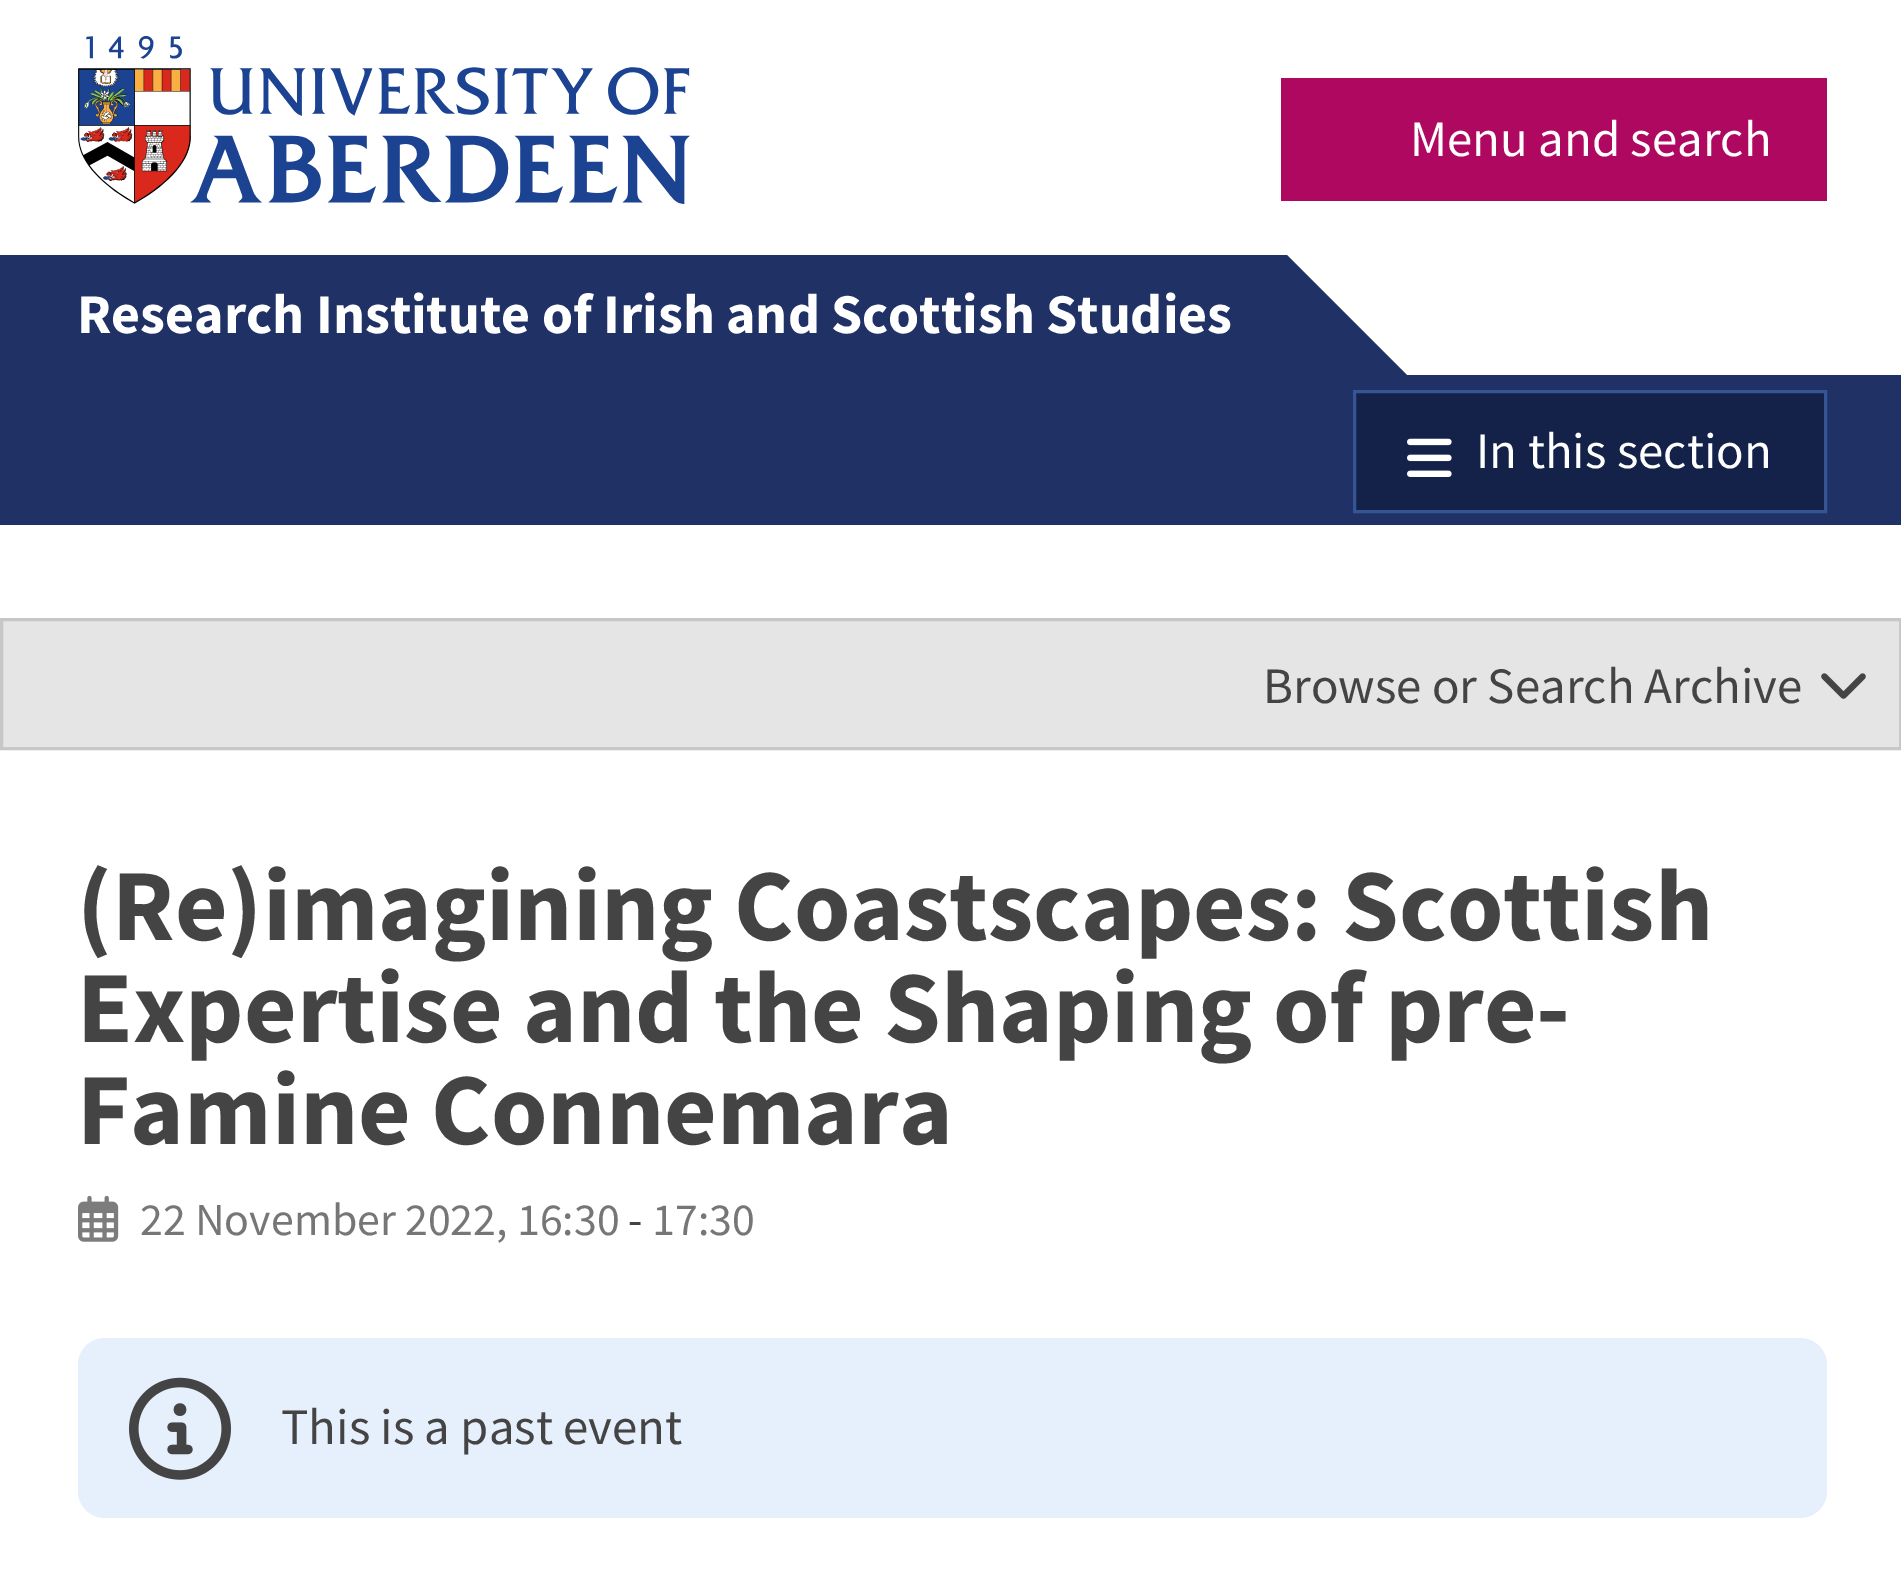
%!PS
<< /PageSize [1901 1574] >> setpagedevice
/roundrect { 5 dict begin { /r /h /w /y /x } { exch def } forall
  x r add y moveto x w add y 2 copy h add r arct x w add y h add x 1 index r arct
  x y h add x y r arct x y 2 copy exch w add exch r arct closepath end } def
/picture { 5 dict begin { /h /w /y /x /name } { exch def } forall
  gsave x y translate w h scale
  w h 8 [w 0 0 h 0 0] name (r) file false 3 colorimage grestore end } def
0 1574 translate 1 -1 scale
4 setmiterlimit
1 setgray
0 0 1901 1574 rectfill
(img1.rgb) 78 36 612 168 picture
0.686 0.031 0.38 setrgbcolor
1281 78 546 123 rectfill
/SourceSansPro-Regular [51 0 0 -51 0 0] selectfont
1 setgray
1410 156 moveto (Menu and search) show
gsave
0 255 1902 120 rectclip
0.122 0.192 0.396 setrgbcolor
newpath 1623 591 moveto -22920 591 lineto -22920 255 lineto 1287 255 lineto closepath fill
grestore
/SourceSansPro-Bold [56.1 0 0 -56.1 0 0] selectfont
77 333 moveto (Research Institute of Irish and Scottish Studies) show
0.122 0.192 0.396 setrgbcolor
0 375 1901 150 rectfill
0.078 0.129 0.286 setrgbcolor
newpath 1354.5 391.5 moveto 1825.5 391.5 lineto 1825.5 511.5 lineto 1354.5 511.5 lineto closepath gsave fill grestore
0.212 0.333 0.58 setrgbcolor
3 setlinewidth
stroke
(img2.rgb) 1407 438 45 39 picture
/SourceSansPro-Regular [51 0 0 -51 0 0] selectfont
1 setgray
1476 468 moveto (In this section) show
0.898 setgray
newpath 1.5 619.5 moveto 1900.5 619.5 lineto 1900.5 748.5 lineto 1.5 748.5 lineto closepath gsave fill grestore
0.78 setgray
stroke
0.267 setgray
1263 703 moveto (Browse or Search Archive) show
(img3.rgb) 1821 673 45 26 picture
/SourceSansPro-Bold [102 0 0 -102 0 0] selectfont
77 940 moveto (\(Re\)imagining Coastscapes: Scottish) show
77 1042 moveto (Expertise and the Shaping of pre-) show
77 1144 moveto (Famine Connemara) show
(img4.rgb) 78 1195 41 47 picture
/SourceSansPro-Regular [45.9 0 0 -45.9 0 0] selectfont
0.463 setgray
140 1235 moveto (22 November 2022, 16:30) show
0.267 setgray
628 1235 moveto (-) show
0.463 setgray
652 1235 moveto (17:30) show
0.902 0.937 0.988 setrgbcolor
78 1338 1749 180 27 roundrect fill
(img5.rgb) 129 1377 102 103 picture
/SourceSansPro-Regular [51 0 0 -51 0 0] selectfont
0.267 setgray
281 1444 moveto (This is a past event) show
showpage
